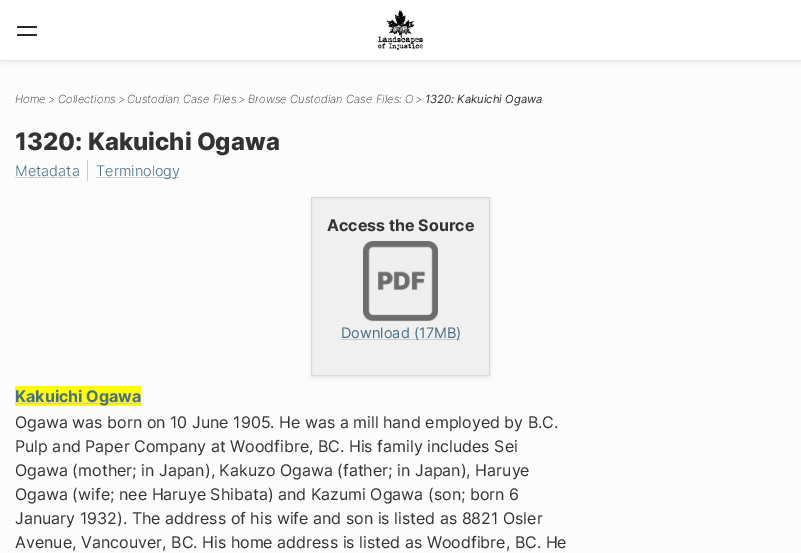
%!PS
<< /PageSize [801 553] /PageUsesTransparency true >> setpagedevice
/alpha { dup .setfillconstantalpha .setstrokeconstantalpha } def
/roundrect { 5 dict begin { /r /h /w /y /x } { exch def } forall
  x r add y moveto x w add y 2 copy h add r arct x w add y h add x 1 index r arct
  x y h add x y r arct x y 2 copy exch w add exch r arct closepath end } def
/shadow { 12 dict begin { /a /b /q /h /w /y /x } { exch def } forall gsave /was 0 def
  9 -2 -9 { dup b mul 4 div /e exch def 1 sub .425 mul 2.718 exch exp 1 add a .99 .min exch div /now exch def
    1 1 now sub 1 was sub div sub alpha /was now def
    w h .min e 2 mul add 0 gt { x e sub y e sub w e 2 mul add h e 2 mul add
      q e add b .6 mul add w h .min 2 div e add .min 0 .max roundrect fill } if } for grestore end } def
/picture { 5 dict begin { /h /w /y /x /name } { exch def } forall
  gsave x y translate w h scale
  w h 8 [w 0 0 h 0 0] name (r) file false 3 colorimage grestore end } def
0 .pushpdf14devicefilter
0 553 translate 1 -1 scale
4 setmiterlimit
0.988 setgray
0 0 801 553 rectfill
0 setgray
0 2 801 61 0 2.5 0.05 shadow
1 setgray
0 0 801 60 rectfill
0.902 setgray
0 60 801 1 rectfill
0.149 setgray
17 26 20 2 1 roundrect fill
17 34 20 2 1 roundrect fill
(img1.rgb) 378 10 45 40 picture
/Inter-ExtraLightItalic [11.25 0 0 -11.25 0 0] selectfont
0.2 setgray
15 103 moveto (Home) show
48 103 moveto (>) show
58 103 moveto (Collections) show
118 103 moveto (>) show
127 103 moveto (Custodian Case Files) show
238 103 moveto (>) show
248 103 moveto (Browse Custodian Case Files: O) show
415 103 moveto (>) show
/Inter-Italic [11.25 0 0 -11.25 0 0] selectfont
425 103 moveto (1320: Kakuichi Ogawa) show
/Inter-ExtraBold [24 0 0 -24 0 0] selectfont
15 150 moveto (1320: Kakuichi Ogawa) show
0.792 setgray
87 160 1 21 rectfill
/Inter-Light [14.5 0 0 -14.5 0 0] selectfont
0.29 0.439 0.518 setrgbcolor
15 176 moveto (Metadata) show
0.8 setgray
15 177 64 1 rectfill
96 177 84 1 rectfill
0.29 0.439 0.518 setrgbcolor
96 176 moveto (Terminology) show
0 setgray
311 199 179 179 0 2.5 0.05 shadow
0.941 setgray
newpath 311.5 197.5 moveto 489.5 197.5 lineto 489.5 375.5 lineto 311.5 375.5 lineto closepath gsave fill grestore
0.847 setgray
stroke
/Inter-Bold [16 0 0 -16 0 0] selectfont
0.2 setgray
327 231 moveto (Access the Source) show
(img2.rgb) 363 241 75 81 picture
0.8 setgray
341 339 119 1 rectfill
/Inter-Regular [14.5 0 0 -14.5 0 0] selectfont
0.29 0.439 0.518 setrgbcolor
341 338 moveto (Download \(17MB\)) show
1 1 0 setrgbcolor
15 386 126 20 rectfill
0.8 setgray
15 403 126 1 rectfill
/Inter-Bold [16 0 0 -16 0 0] selectfont
0.29 0.439 0.518 setrgbcolor
15 402 moveto (Kakuichi Ogawa) show
/Inter-Regular [16 0 0 -16 0 0] selectfont
0.2 setgray
15 428 moveto (Ogawa was born on 10 June 1905. He was a mill hand employed by B.C.) show
15 452 moveto (Pulp and Paper Company at Woodfibre, BC. His family includes Sei) show
15 476 moveto (Ogawa \(mother; in Japan\), Kakuzo Ogawa \(father; in Japan\), Haruye) show
15 500 moveto (Ogawa \(wife; nee Haruye Shibata\) and Kazumi Ogawa \(son; born 6) show
15 524 moveto (January 1932\). The address of his wife and son is listed as 8821 Osler) show
15 548 moveto (Avenue, Vancouver, BC. His home address is listed as Woodfibre, BC. He) show
.poppdf14devicefilter showpage
